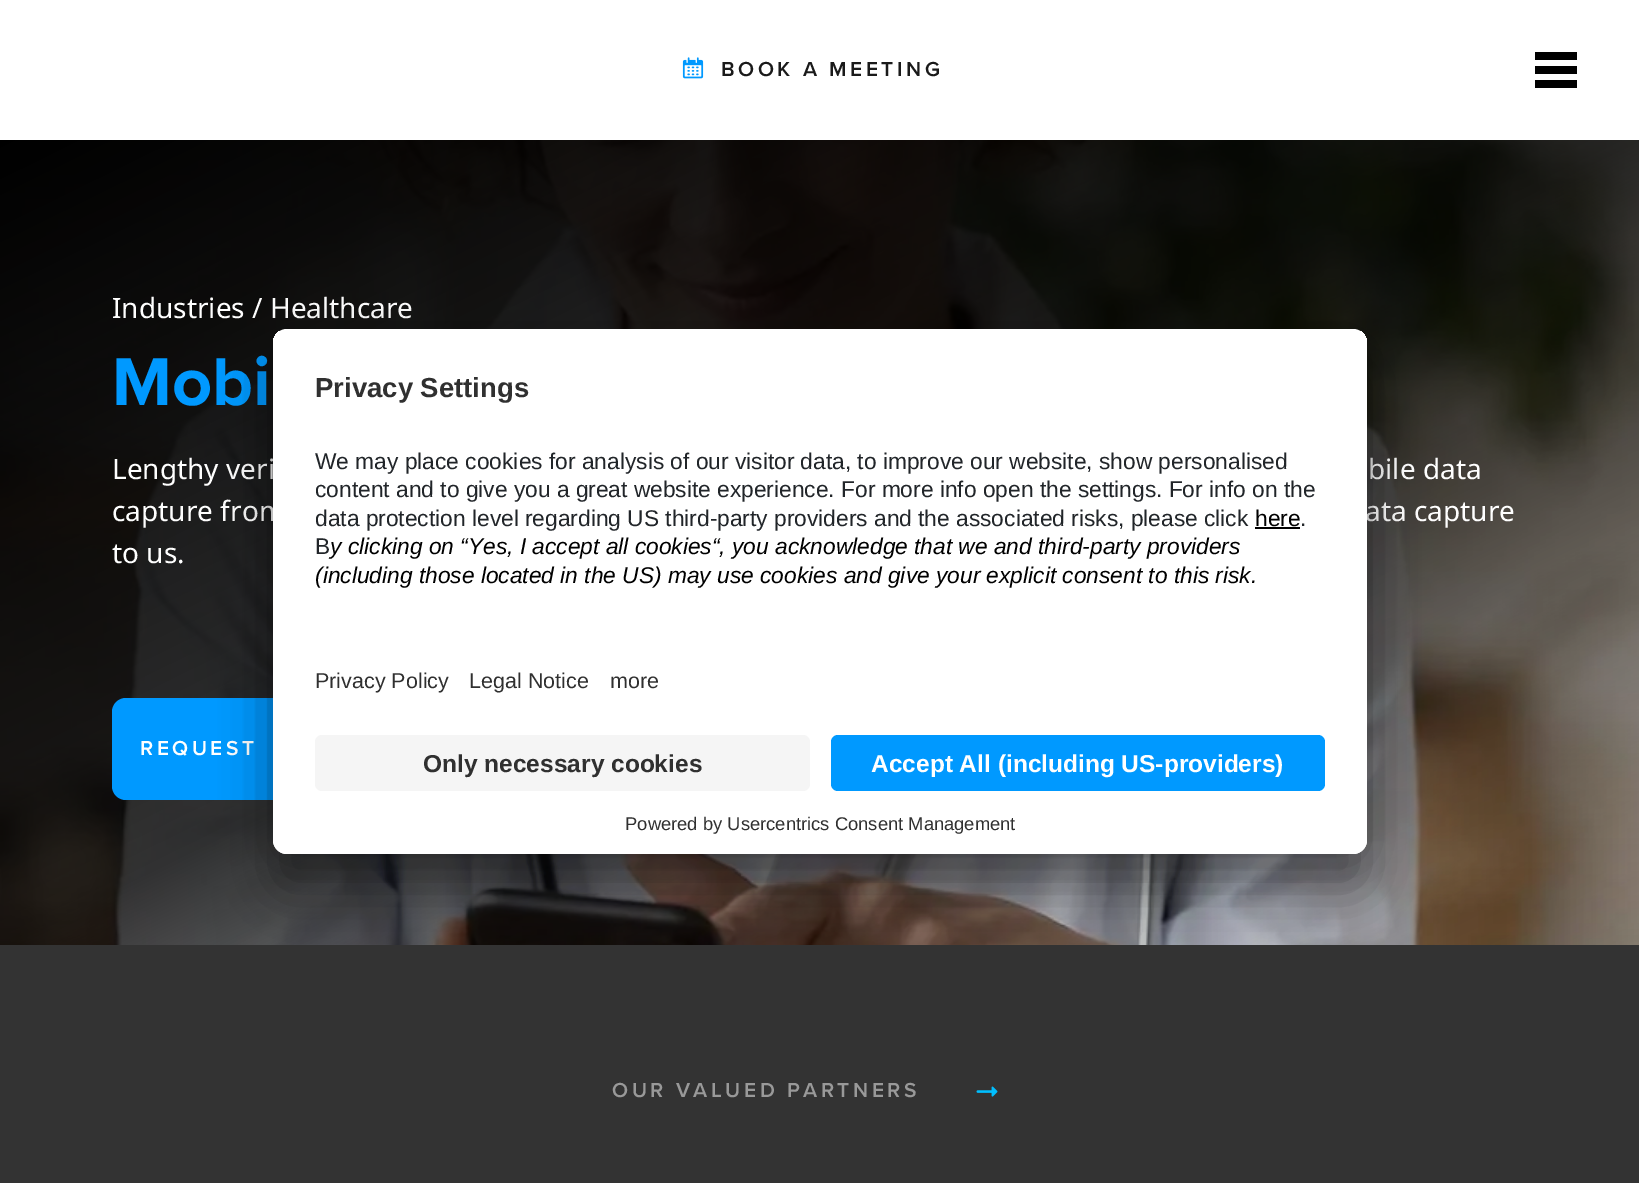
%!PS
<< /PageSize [1639 1183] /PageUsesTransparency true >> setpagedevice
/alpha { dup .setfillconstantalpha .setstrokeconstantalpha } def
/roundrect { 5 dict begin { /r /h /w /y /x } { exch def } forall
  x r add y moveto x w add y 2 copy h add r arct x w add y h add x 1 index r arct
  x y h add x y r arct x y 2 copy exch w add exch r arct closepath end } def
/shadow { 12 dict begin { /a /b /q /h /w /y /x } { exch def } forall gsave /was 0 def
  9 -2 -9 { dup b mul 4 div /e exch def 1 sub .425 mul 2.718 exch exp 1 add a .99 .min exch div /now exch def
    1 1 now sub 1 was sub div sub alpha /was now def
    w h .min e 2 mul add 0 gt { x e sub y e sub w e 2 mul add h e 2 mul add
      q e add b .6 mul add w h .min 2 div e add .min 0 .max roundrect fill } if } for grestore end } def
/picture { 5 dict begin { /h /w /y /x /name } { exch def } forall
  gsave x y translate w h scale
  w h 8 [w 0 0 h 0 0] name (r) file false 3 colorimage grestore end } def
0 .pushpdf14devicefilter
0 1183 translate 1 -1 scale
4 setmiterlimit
1 setgray
0 0 1639 1183 rectfill
(img1.rgb) 682 57 22 22 picture
/ProximaNova-SemiBold [21 0 0 -21 0 0] selectfont
0.102 setgray
721 76 moveto 3.5 0 (BOOK A MEETING) ashow
0 setgray
newpath 1535 52 moveto 1577 52 lineto 1577 60 lineto 1535 60 lineto closepath 1535 66 moveto 1577 66 lineto 1577 74 lineto 1535 74 lineto closepath 1535 80 moveto 1577 80 lineto 1577 88 lineto 1535 88 lineto closepath fill
(img2.rgb) 0 140 1639 805 picture
/NotoSans-Regular [28 0 0 -28 0 0] selectfont
1 setgray
112 318 moveto (Industries / Healthcare) show
/ProximaNova-Bold [70 0 0 -70 0 0] selectfont
0 0.6 1 setrgbcolor
112 405 moveto (Mobi) show
/NotoSans-Regular [28 0 0 -28 0 0] selectfont
1 setgray
112 479 moveto (Lengthy veri) show
1368 479 moveto (bile data) show
112 521 moveto (capture from) show
1365 521 moveto (ata capture) show
112 563 moveto (to us.) show
0 0.6 1 setrgbcolor
112 698 284 102 14 roundrect fill
/ProximaNova-SemiBold [21 0 0 -21 0 0] selectfont
1 setgray
140 755 moveto 3.5 0 (REQUEST) ashow
0.2 setgray
0 945 1639 238 rectfill
0.6 setgray
612 1097 moveto 3.5 0 (OUR VALUED PARTNERS) ashow
(img3.rgb) 976 1086 22 11 picture
0 setgray
273 364 1094 525 14 24.5 0.3 shadow
273 338 1094 525 14 23 0.22 shadow
1 setgray
273 329 1094 525 14 roundrect fill
gsave
273 329 1094 525 14 roundrect clip newpath
newpath 287 329 moveto 1353 329 lineto 1360.5 329 1367 335.5 1367 343 curveto 1367 721 lineto 273 721 lineto 273 343 lineto 273 335.5 279.5 329 287 329 curveto closepath clip newpath
273 331 1094 390 rectfill
grestore
/LiberationSans-Bold [27.5 0 0 -27.5 0 0] selectfont
0.188 setgray
315 397 moveto (Privacy Settings) show
/LiberationSans-Regular [22.75 0 0 -22.75 0 0] selectfont
0.129 0.145 0.161 setrgbcolor
315 469 moveto (We may place cookies for analysis of our visitor data, to improve our website, show personalised) show
315 497 moveto (content and to give you a great website experience. For more info open the settings. For info on the) show
315 526 moveto (data protection level regarding US third-party providers and the associated risks, please click) show
0 setgray
1255 526 moveto (here) show
1255 527 45 2 rectfill
0.129 0.145 0.161 setrgbcolor
1300 526 moveto (.) show
315 554 moveto (B) show
/LiberationSans-Italic [22.75 0 0 -22.75 0 0] selectfont
0 setgray
330 554 moveto (y clicking on “Yes, I accept all cookies“, you acknowledge that we and third-party providers) show
315 583 moveto (\(including those located in the US\) may use cookies and give your explicit consent to this risk.) show
/LiberationSans-Regular [21.5 0 0 -21.5 0 0] selectfont
0.188 setgray
315 688 moveto (Privacy Policy) show
469 688 moveto (Legal Notice) show
610 688 moveto (more) show
1 setgray
newpath 273 721 moveto 1367 721 lineto 1367 840 lineto 1367 847.5 1360.5 854 1353 854 curveto 287 854 lineto 279.5 854 273 847.5 273 840 curveto closepath fill
0.961 setgray
315 735 495 56 7 roundrect fill
/LiberationSans-Bold [24.5 0 0 -24.5 0 0] selectfont
0.188 setgray
423 772 moveto (Only necessary cookies) show
0 0.6 1 setrgbcolor
831 735 494 56 7 roundrect fill
1 setgray
871 772 moveto (Accept All \(including US-providers\)) show
/LiberationSans-Regular [18.4 0 0 -18.4 0 0] selectfont
0.188 setgray
625 830 moveto (Powered by Usercentrics Consent Management) show
.poppdf14devicefilter showpage
